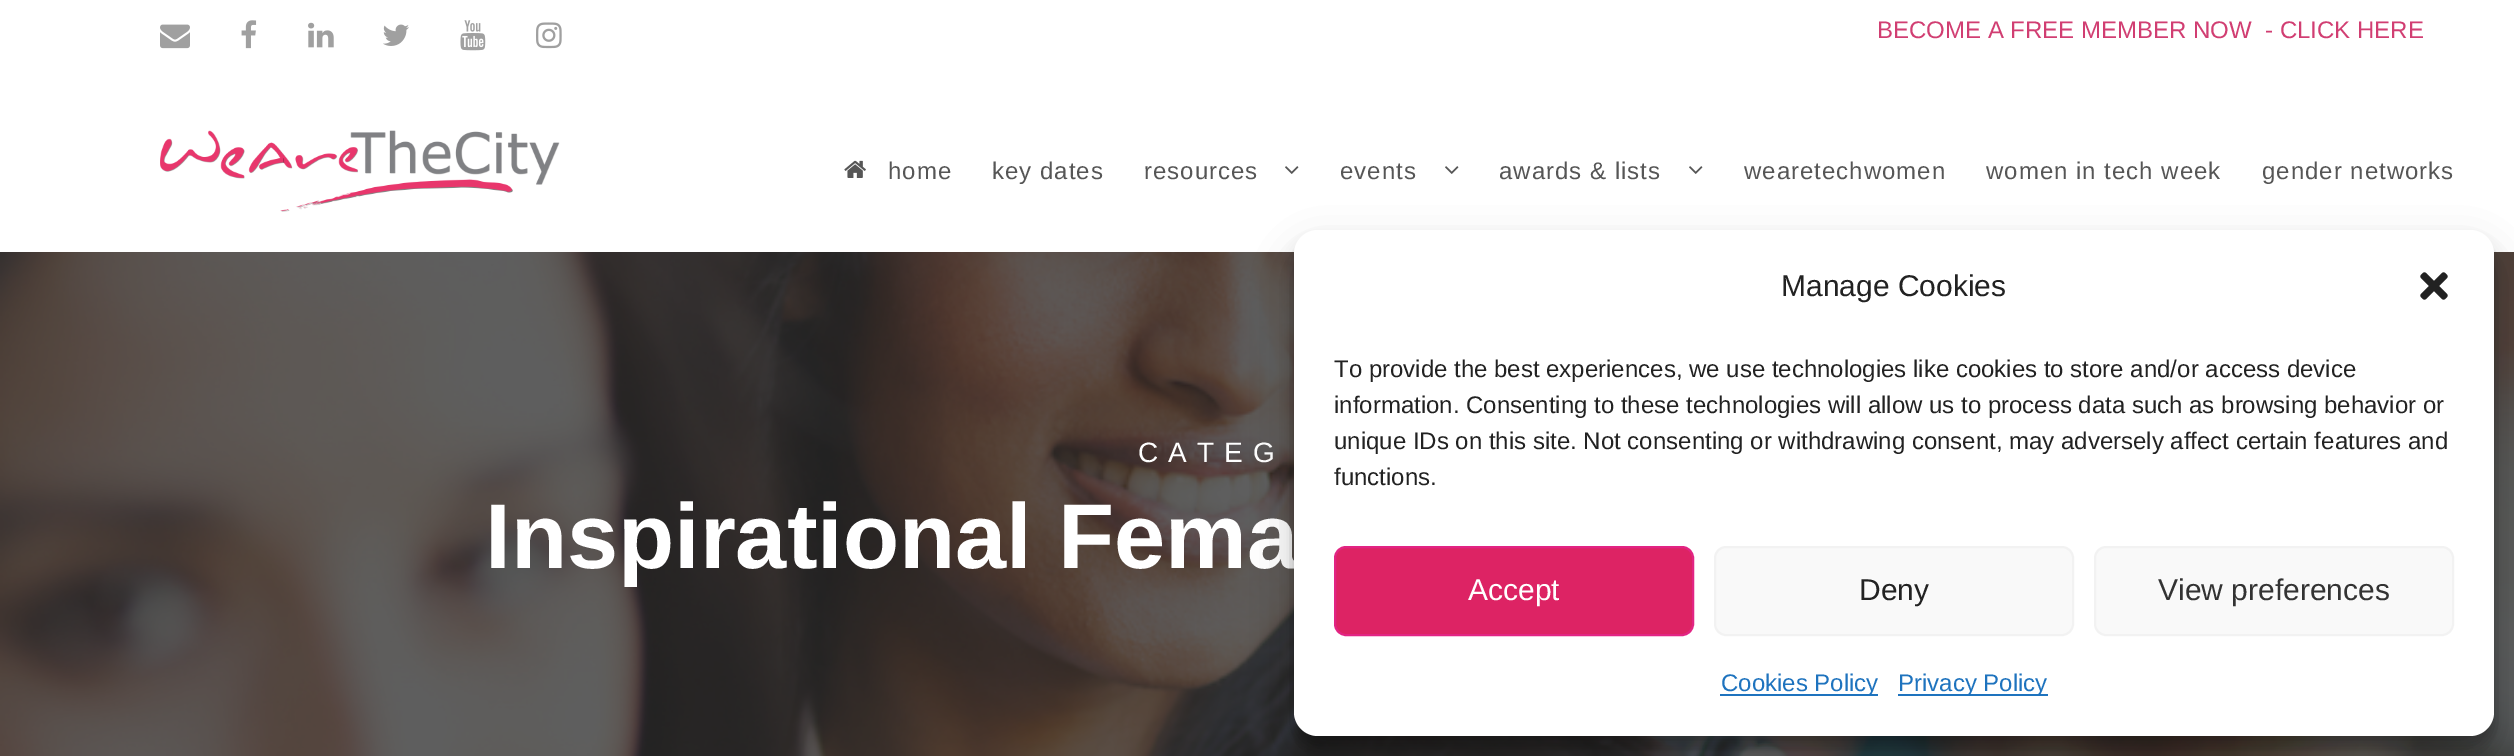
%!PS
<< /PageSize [2514 756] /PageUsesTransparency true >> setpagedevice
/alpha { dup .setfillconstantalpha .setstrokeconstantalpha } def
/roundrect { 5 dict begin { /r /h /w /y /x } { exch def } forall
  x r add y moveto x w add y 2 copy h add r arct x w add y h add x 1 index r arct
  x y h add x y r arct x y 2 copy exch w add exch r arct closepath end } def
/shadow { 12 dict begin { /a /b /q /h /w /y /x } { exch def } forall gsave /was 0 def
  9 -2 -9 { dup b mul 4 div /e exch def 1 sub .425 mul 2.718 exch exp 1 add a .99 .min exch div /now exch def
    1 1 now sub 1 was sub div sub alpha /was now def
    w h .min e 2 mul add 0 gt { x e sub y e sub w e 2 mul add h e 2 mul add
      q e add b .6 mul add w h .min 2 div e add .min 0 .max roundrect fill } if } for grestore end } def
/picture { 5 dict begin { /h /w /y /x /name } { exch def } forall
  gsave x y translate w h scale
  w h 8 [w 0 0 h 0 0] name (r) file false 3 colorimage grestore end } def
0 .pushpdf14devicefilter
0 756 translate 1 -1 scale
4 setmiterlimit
1 setgray
0 0 2514 756 rectfill
(img1.rgb) 160 24 30 25 picture
(img2.rgb) 241 20 16 29 picture
(img3.rgb) 308 22 26 26 picture
(img4.rgb) 383 24 26 22 picture
(img5.rgb) 460 20 26 31 picture
(img6.rgb) 536 22 26 27 picture
/LiberationSans-Regular [24 0 0 -24 0 0] selectfont
0.82 0.243 0.447 setrgbcolor
1877 38 moveto (BECOME A FREE MEMBER NOW  - CLICK HERE) show
(img7.rgb) 160 130 400 82 picture
(img8.rgb) 844 160 22 18 picture
0.337 setgray
888 179 moveto 1 0 (home) ashow
992 179 moveto 1 0 (key dates) ashow
1144 179 moveto 1 0 (resources) ashow
(img9.rgb) 1285 166 14 8 picture
1340 179 moveto 1 0 (events) ashow
(img9.rgb) 1445 166 14 8 picture
1499 179 moveto 1 0 (awards & lists) ashow
(img9.rgb) 1689 166 14 8 picture
1744 179 moveto 1 0 (wearetechwomen) ashow
1986 179 moveto 1 0 (women in tech week) ashow
2262 179 moveto 1 0 (gender networks) ashow
(img10.rgb) 0 252 2514 504 picture
/LiberationSans-Regular [28 0 0 -28 0 0] selectfont
1 setgray
1138 462 moveto 10 0 (CATEG) ashow
/LiberationSans-Bold [92 0 0 -92 0 0] selectfont
485 568 moveto (Inspirational Fema) show
0 setgray
1294 242 1200 506 24 6 0.23 shadow
1294 250 1200 506 24 20 0.19 shadow
1 setgray
1294 230 1200 506 24 roundrect fill
/LiberationSans-Regular [30 0 0 -30 0 0] selectfont
0.133 setgray
1781 296 moveto (Manage Cookies) show
(img11.rgb) 2420 272 28 28 picture
/LiberationSans-Regular [24 0 0 -24 0 0] selectfont
1334 377 moveto (To provide the best experiences, we use technologies like cookies to store and/or access device) show
1334 413 moveto (information. Consenting to these technologies will allow us to process data such as browsing behavior or) show
1334 449 moveto (unique IDs on this site. Not consenting or withdrawing consent, may adversely affect certain features and) show
1334 485 moveto (functions.) show
0.867 0.137 0.392 setrgbcolor
1335 547 358 88 11 roundrect gsave fill grestore
0.886 0.141 0.514 setrgbcolor
2 setlinewidth
stroke
/LiberationSans-Regular [30 0 0 -30 0 0] selectfont
1 setgray
1468 600 moveto (Accept) show
0.976 setgray
1715 547 358 88 11 roundrect gsave fill grestore
0.949 setgray
stroke
0.133 setgray
1859 600 moveto (Deny) show
0.976 setgray
2095 547 358 88 11 roundrect gsave fill grestore
0.949 setgray
stroke
0.2 setgray
2158 600 moveto (View preferences) show
0.118 0.451 0.745 setrgbcolor
1720 694 158 2 rectfill
/LiberationSans-Regular [24 0 0 -24 0 0] selectfont
1721 691 moveto (Cookies Policy) show
1898 694 150 2 rectfill
1898 691 moveto (Privacy Policy) show
.poppdf14devicefilter showpage
